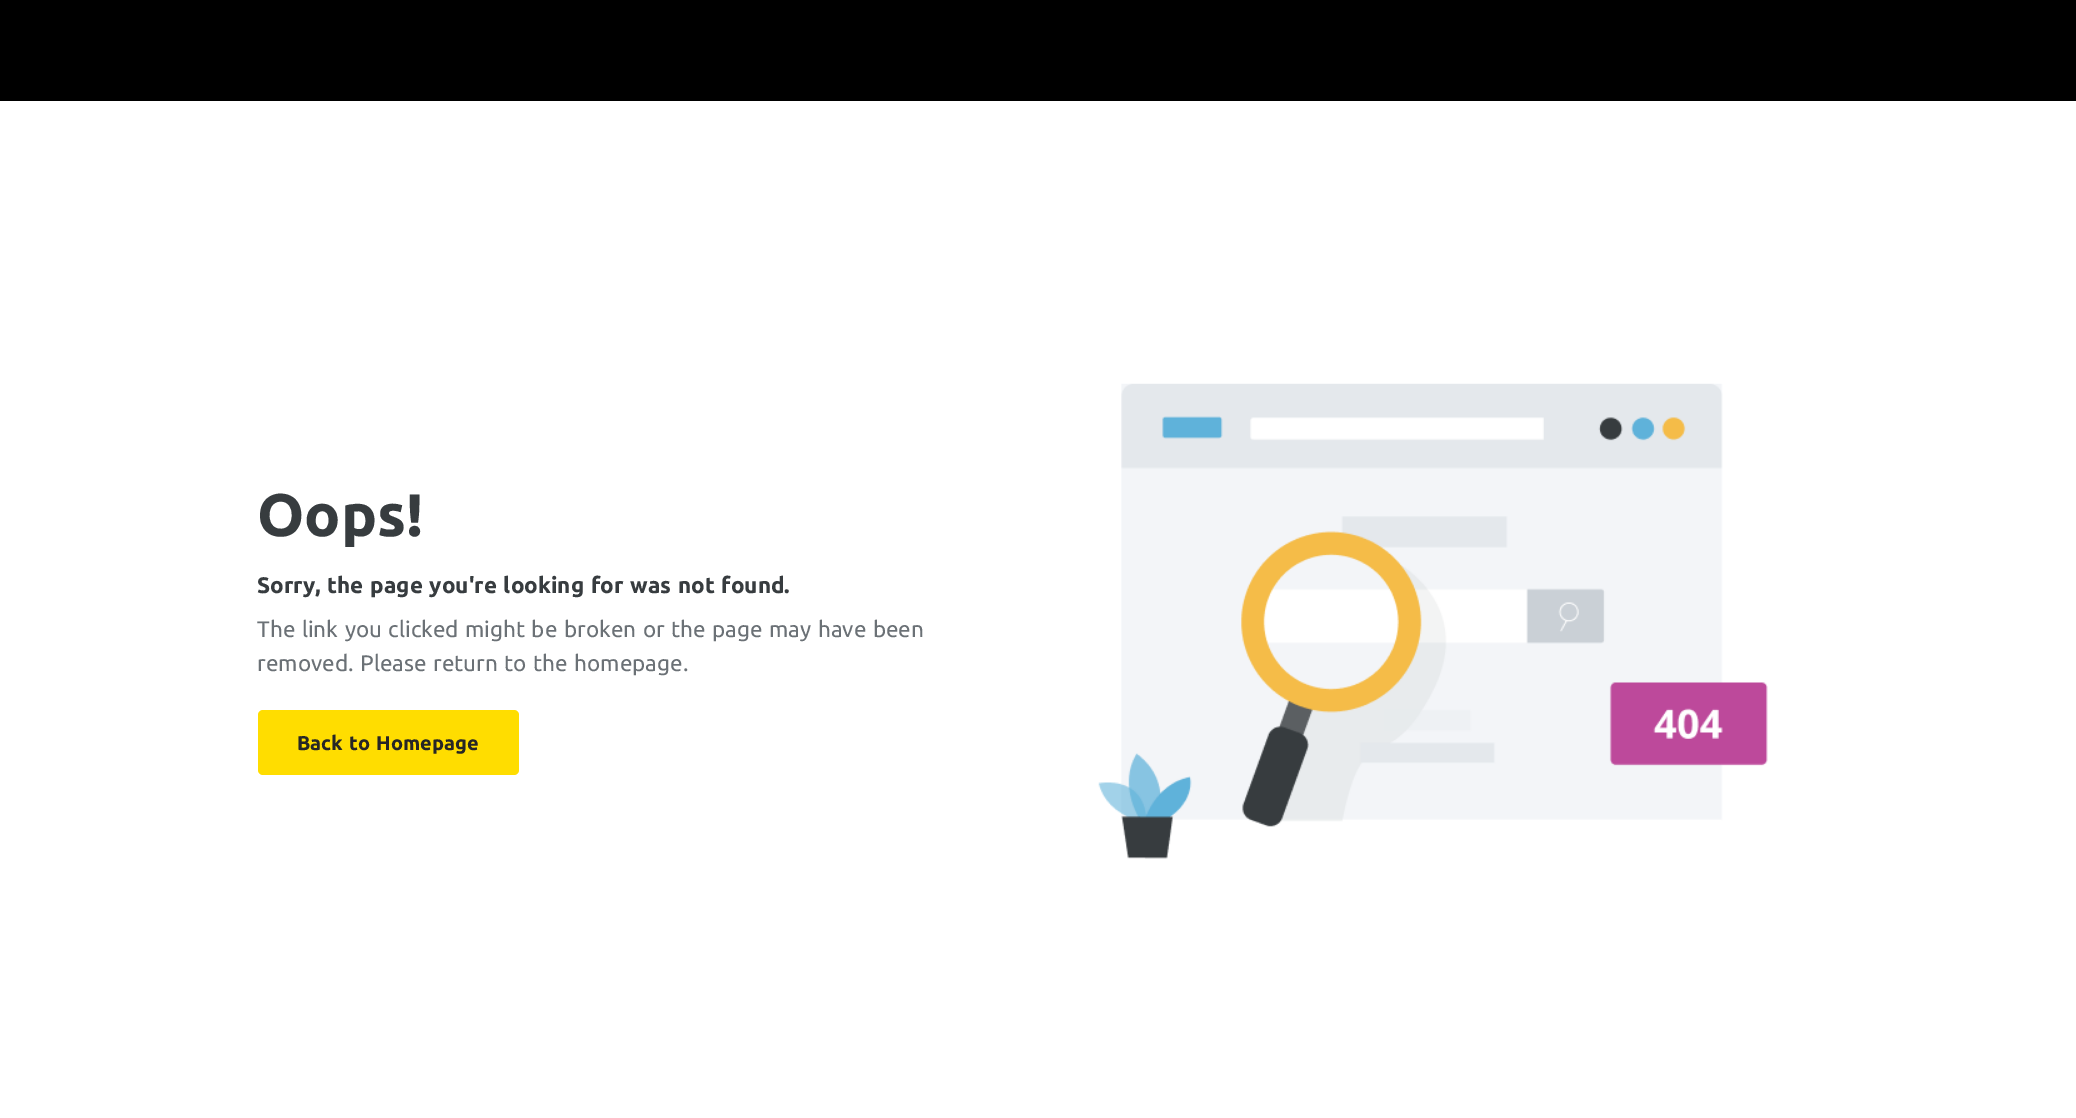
%!PS
<< /PageSize [2076 1118] >> setpagedevice
/roundrect { 5 dict begin { /r /h /w /y /x } { exch def } forall
  x r add y moveto x w add y 2 copy h add r arct x w add y h add x 1 index r arct
  x y h add x y r arct x y 2 copy exch w add exch r arct closepath end } def
/picture { 5 dict begin { /h /w /y /x /name } { exch def } forall
  gsave x y translate w h scale
  w h 8 [w 0 0 h 0 0] name (r) file false 3 colorimage grestore end } def
0 1118 translate 1 -1 scale
4 setmiterlimit
1 setgray
0 0 2076 1118 rectfill
0 setgray
0 0 2076 101 rectfill
/Ubuntu-Bold [60 0 0 -60 0 0] selectfont
0.216 0.235 0.247 setrgbcolor
257 536 moveto (Oops!) show
/Ubuntu-Bold [22.5 0 0 -22.5 0 0] selectfont
257 593 moveto 1.25 0 32 (Sorry, the page you're looking for was not found.) widthshow
/Ubuntu-Regular [22.5 0 0 -22.5 0 0] selectfont
0.42 0.443 0.463 setrgbcolor
257 637 moveto 1.25 0 32 (The link you clicked might be broken or the page may have been) widthshow
257 671 moveto 1.25 0 32 (removed. Please return to the homepage.) widthshow
1 0.867 0 setrgbcolor
258 710 261 65 5 roundrect fill
/Ubuntu-Bold [20 0 0 -20 0 0] selectfont
0.149 setgray
297 750 moveto 1.25 0 32 (Back to Homepage) widthshow
(img1.rgb) 1098 383 670 476 picture
showpage
